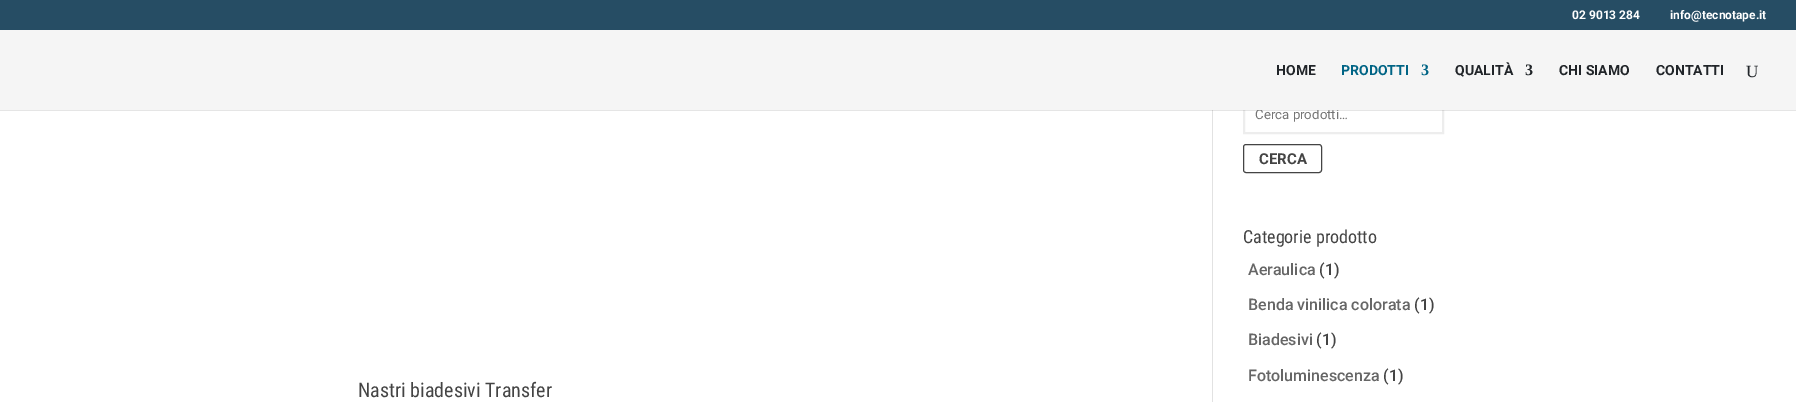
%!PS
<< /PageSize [1796 402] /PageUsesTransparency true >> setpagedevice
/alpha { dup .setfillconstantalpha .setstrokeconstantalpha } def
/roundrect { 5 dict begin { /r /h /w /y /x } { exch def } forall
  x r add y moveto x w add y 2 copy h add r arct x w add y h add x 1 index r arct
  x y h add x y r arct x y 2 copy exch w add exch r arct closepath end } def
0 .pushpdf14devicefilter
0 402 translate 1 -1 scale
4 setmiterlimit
1 setgray
0 0 1796 402 rectfill
0.149 0.302 0.392 setrgbcolor
0 0 1796 30 rectfill
/Roboto-Bold [12 0 0 -12 0 0] selectfont
1 setgray
1572 19 moveto (02 9013 284) show
1670 19 moveto (info@tecnotape.it) show
0.929 setgray
2 setlinewidth
1244 96 199 37 rectstroke
0.886 setgray
1212 110 1 292 rectfill
0.1 alpha
0 setgray
0 110 1796 1 rectfill
/Roboto-Regular [13.25 0 0 -13.25 0 0] selectfont
1 alpha
0.459 setgray
1255 119 moveto (Cerca prodotti…) show
0.961 setgray
0 30 1796 80 rectfill
/Roboto-Bold [14 0 0 -14 0 0] selectfont
0.129 0.145 0.161 setrgbcolor
1276 75 moveto (HOME) show
0 0.392 0.522 setrgbcolor
1341 75 moveto (PRODOTTI) show
/LiberationSerif-Bold [16 0 0 -16 0 0] selectfont
1421 75 moveto (3) show
/Roboto-Bold [14 0 0 -14 0 0] selectfont
0.129 0.145 0.161 setrgbcolor
1455 75 moveto (QUALITÀ) show
/LiberationSerif-Bold [16 0 0 -16 0 0] selectfont
1525 75 moveto (3) show
/Roboto-Bold [14 0 0 -14 0 0] selectfont
1559 75 moveto (CHI SIAMO) show
1656 75 moveto (CONTATTI) show
/LiberationSerif-Regular [17 0 0 -17 0 0] selectfont
1746 77 moveto (U) show
0.267 setgray
1 setlinewidth
1243.5 144.5 78 28 2.5 roundrect stroke
/Roboto-Bold [15 0 0 -15 0 0] selectfont
1259 164 moveto (CERCA) show
/RobotoCondensed-Regular [18 0 0 -18 0 0] selectfont
1243 243 moveto (Categorie prodotto) show
/Roboto-Medium [16 0 0 -16 0 0] selectfont
0.4 setgray
1248 275 moveto (Aeraulica) show
0.267 setgray
1319 275 moveto (\(1\)) show
0.4 setgray
1248 310 moveto (Benda vinilica colorata) show
0.267 setgray
1414 310 moveto (\(1\)) show
0.4 setgray
1248 345 moveto (Biadesivi) show
0.267 setgray
1316 345 moveto (\(1\)) show
0.4 setgray
1248 381 moveto (Fotoluminescenza) show
0.267 setgray
1383 381 moveto (\(1\)) show
/RobotoCondensed-Regular [20 0 0 -20 0 0] selectfont
358 397 moveto (Nastri biadesivi Transfer) show
.poppdf14devicefilter showpage
